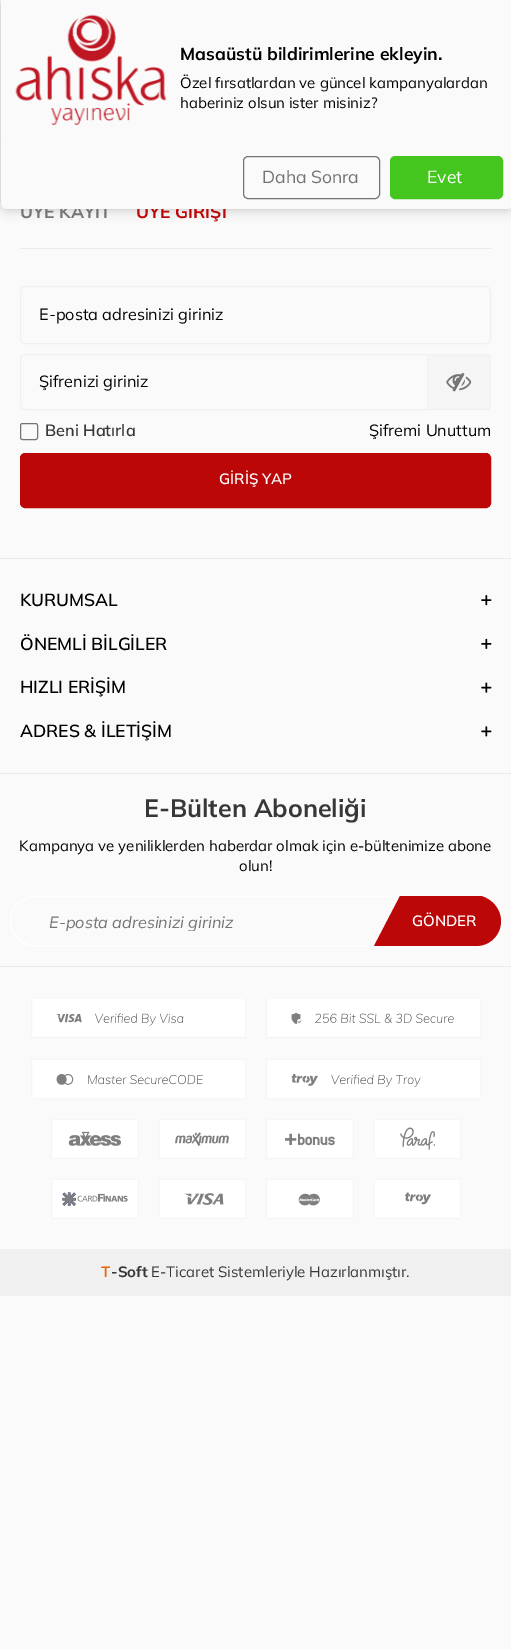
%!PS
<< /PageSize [511 1649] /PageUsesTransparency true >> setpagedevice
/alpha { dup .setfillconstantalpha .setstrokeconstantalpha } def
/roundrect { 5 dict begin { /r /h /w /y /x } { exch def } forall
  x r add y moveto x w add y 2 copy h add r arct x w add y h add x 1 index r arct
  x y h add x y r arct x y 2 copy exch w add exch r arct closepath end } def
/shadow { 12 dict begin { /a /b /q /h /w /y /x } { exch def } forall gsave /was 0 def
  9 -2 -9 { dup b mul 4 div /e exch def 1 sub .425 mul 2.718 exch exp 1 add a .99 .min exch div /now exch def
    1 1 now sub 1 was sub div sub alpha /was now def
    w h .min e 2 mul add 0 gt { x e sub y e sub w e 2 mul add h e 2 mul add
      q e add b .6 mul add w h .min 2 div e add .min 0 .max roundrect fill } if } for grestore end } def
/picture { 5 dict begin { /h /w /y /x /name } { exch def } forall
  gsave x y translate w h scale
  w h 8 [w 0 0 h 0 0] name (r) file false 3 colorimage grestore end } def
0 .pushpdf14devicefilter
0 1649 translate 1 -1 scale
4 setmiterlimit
0.98 setgray
0 0 511 1649 rectfill
0.918 setgray
0 141 1 1 rectfill
0.157 setgray
1 0 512 209 6 6 0.3 shadow
/Mulish-Bold [17.5 0 0 -17.5 0 0] selectfont
0.455 setgray
20 218 moveto (ÜYE KAYIT) show
0.733 0.027 0.027 setrgbcolor
136 218 moveto (ÜYE GİRİŞİ) show
0.98 setgray
newpath 1 0 moveto 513 0 lineto 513 203 lineto 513 206.5 510.5 209 507 209 curveto 7 209 lineto 3.5 209 1 206.5 1 203 curveto closepath fill
(img1.rgb) 15 14 152 111 picture
0 setgray
180 60 moveto (Masaüstü bildirimlerine ekleyin.) show
/Mulish-Regular [15 0 0 -15 0 0] selectfont
180 88 moveto (Özel fırsatlardan ve güncel kampanyalardan) show
180 108 moveto (haberiniz olsun ister misiniz?) show
0.455 setgray
243.5 156.5 136 42 4.5 roundrect stroke
/Mulish-Regular [17.5 0 0 -17.5 0 0] selectfont
262 183 moveto (Daha Sonra) show
0.267 0.776 0.122 setrgbcolor
390.5 156.5 112 42 4.5 roundrect gsave fill grestore
stroke
1 setgray
427 183 moveto (Evet) show
0.918 setgray
20 248 471 1 rectfill
0.941 setgray
20.5 286.5 470 57 4.5 roundrect stroke
/Mulish-Regular [16.25 0 0 -16.25 0 0] selectfont
0 setgray
39 320 moveto (E-posta adresinizi giriniz) show
0.941 setgray
newpath 25 354.5 moveto 427.5 354.5 lineto 427.5 409.5 lineto 25 409.5 lineto 22.5 409.5 20.5 407.5 20.5 405 curveto 20.5 359 lineto 20.5 356.5 22.5 354.5 25 354.5 curveto closepath stroke
0.961 setgray
newpath 428 354 moveto 486 354 lineto 489 354 491 356 491 359 curveto 491 405 lineto 491 408 489 410 486 410 curveto 428 410 lineto closepath fill
0.941 setgray
newpath 428 354 moveto 486 354 lineto 489 354 491 356 491 359 curveto 491 405 lineto 491 408 489 410 486 410 curveto 428 410 lineto closepath 428 355 moveto 486 355 lineto 488 355 490 357 490 359 curveto 490 405 lineto 490 407 488 409 486 409 curveto 428 409 lineto closepath eofill
(img2.rgb) 446 372 26 20 picture
0 setgray
39 387 moveto (Şifrenizi giriniz) show
0.455 setgray
20.5 423.5 17 16 2 roundrect stroke
/Mulish-SemiBold [16.25 0 0 -16.25 0 0] selectfont
0.216 0.216 0.22 setrgbcolor
45 436 moveto (Beni Hatırla) show
/Mulish-Regular [16.25 0 0 -16.25 0 0] selectfont
0 setgray
369 436 moveto (Şifremi Unuttum) show
0.733 0.027 0.027 setrgbcolor
20.5 453.5 470 54 4.5 roundrect gsave fill grestore
stroke
/Mulish-SemiBold [15 0 0 -15 0 0] selectfont
1 setgray
219 484 moveto (GİRİŞ YAP) show
0.918 setgray
0 558 511 1 rectfill
/Mulish-SemiBold [17.5 0 0 -17.5 0 0] selectfont
0 setgray
20 606 moveto (KURUMSAL) show
(img3.rgb) 481 595 11 11 picture
20 650 moveto (ÖNEMLİ BİLGİLER) show
(img4.rgb) 481 638 11 11 picture
20 693 moveto (HIZLI ERİŞİM) show
(img5.rgb) 481 682 11 11 picture
20 737 moveto (ADRES & İLETİŞİM) show
(img6.rgb) 481 726 11 11 picture
0.918 setgray
0 773 511 1 rectfill
/Mulish-Bold [25 0 0 -25 0 0] selectfont
0.216 0.216 0.22 setrgbcolor
144 817 moveto (E-Bülten Aboneliği) show
/Mulish-Regular [15 0 0 -15 0 0] selectfont
0 setgray
19 851 moveto (Kampanya ve yeniliklerden haberdar olmak için e-bültenimize abone) show
239 871 moveto (olun!) show
1 setgray
10.5 896.5 490 49 24.5 roundrect stroke
gsave
49 911 414 20 rectclip
/Mulish-Italic [16.25 0 0 -16.25 0 0] selectfont
0.455 setgray
49 928 moveto (E-posta adresinizi giriniz) show
grestore
0.733 0.027 0.027 setrgbcolor
newpath 400 896 moveto 481 896 lineto 492 899 501 909 501 921 curveto 501 935 490 946 476 946 curveto 374 946 lineto closepath fill
/Mulish-SemiBold [15 0 0 -15 0 0] selectfont
1 setgray
412 926 moveto (GÖNDER) show
0.918 setgray
0 966 511 1 rectfill
(img7.rgb) 31 998 215 40 picture
(img8.rgb) 266 998 215 40 picture
(img9.rgb) 31 1059 215 40 picture
(img10.rgb) 266 1059 215 40 picture
(img11.rgb) 51 1119 88 40 picture
(img12.rgb) 159 1119 87 40 picture
(img13.rgb) 266 1119 88 40 picture
(img14.rgb) 374 1119 87 40 picture
(img15.rgb) 51 1179 88 40 picture
(img16.rgb) 159 1179 87 40 picture
(img17.rgb) 266 1179 88 40 picture
(img18.rgb) 374 1179 87 40 picture
0.941 setgray
0 1249 511 47 rectfill
/Mulish-Bold [15 0 0 -15 0 0] selectfont
0.925 0.392 0.031 setrgbcolor
101 1277 moveto (T) show
0.216 0.216 0.22 setrgbcolor
111 1277 moveto (-Soft) show
/Mulish-Regular [15 0 0 -15 0 0] selectfont
151 1277 moveto (E-Ticaret Sistemleriyle Hazırlanmıştır.) show
.poppdf14devicefilter showpage
